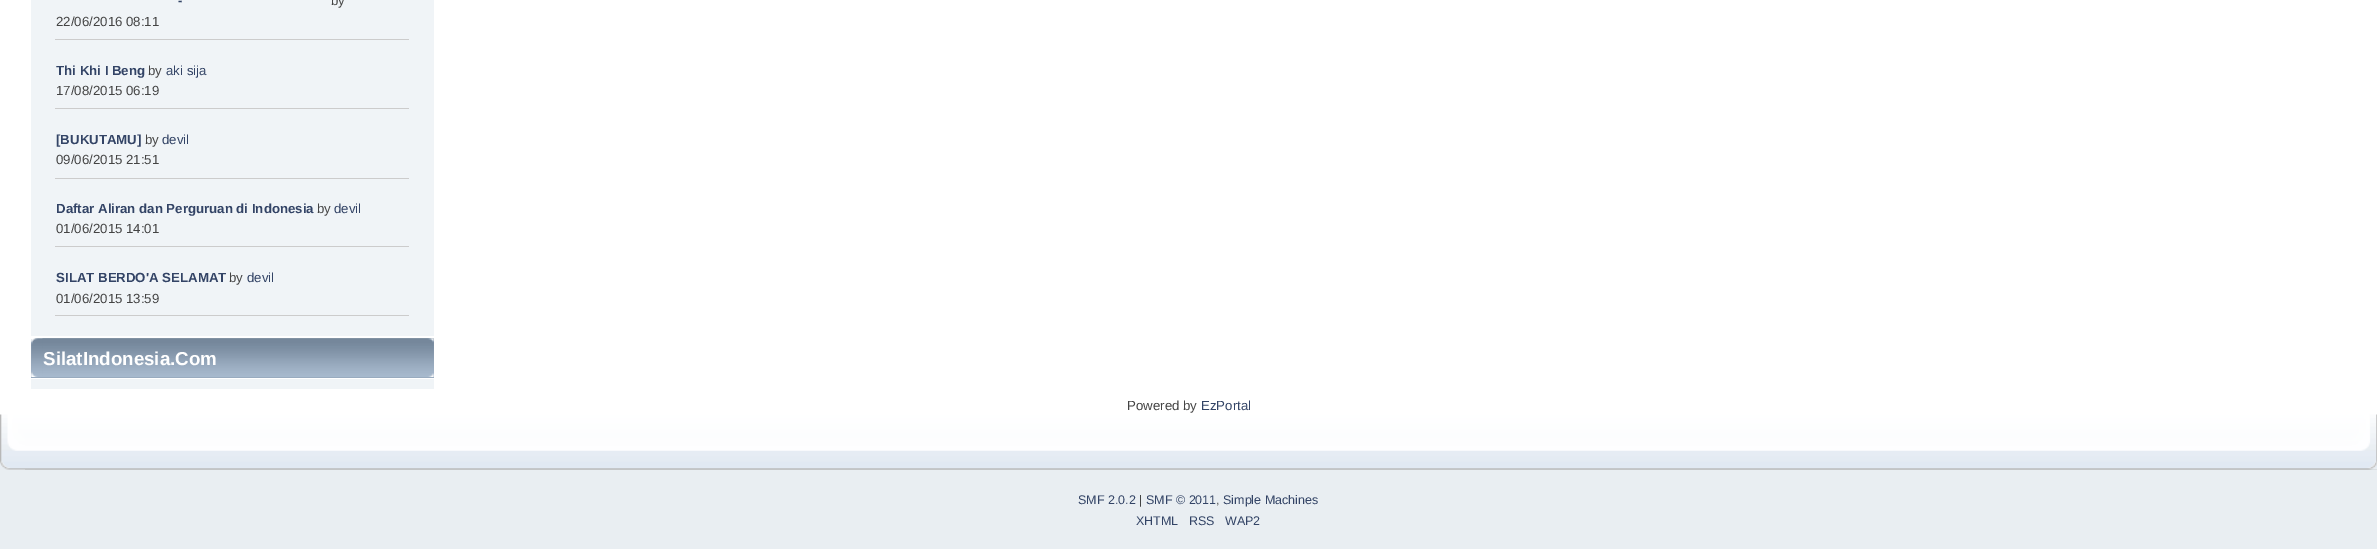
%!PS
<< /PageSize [2377 549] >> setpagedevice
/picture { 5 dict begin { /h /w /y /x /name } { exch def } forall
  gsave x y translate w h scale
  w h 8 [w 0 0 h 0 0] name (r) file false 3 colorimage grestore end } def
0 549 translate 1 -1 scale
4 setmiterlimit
0.914 0.933 0.949 setrgbcolor
0 0 2377 549 rectfill
1 setgray
0 0 2377 415 rectfill
0.941 0.957 0.969 setrgbcolor
31 0 403 336 rectfill
/LiberationSans-Bold [13.25 0 0 -13.25 0 0] selectfont
0.2 0.267 0.4 setrgbcolor
178 5 moveto (-) show
/LiberationSans-Regular [13.25 0 0 -13.25 0 0] selectfont
0.267 setgray
331 5 moveto (by) show
56 26 moveto (22/06/2016 08:11) show
0.8 setgray
55 39 354 1 rectfill
/LiberationSans-Bold [13.25 0 0 -13.25 0 0] selectfont
0.2 0.267 0.4 setrgbcolor
56 75 moveto (Thi Khi I Beng) show
/LiberationSans-Regular [13.25 0 0 -13.25 0 0] selectfont
0.267 setgray
148 75 moveto (by) show
0.2 0.267 0.4 setrgbcolor
166 75 moveto (aki sija) show
0.267 setgray
56 95 moveto (17/08/2015 06:19) show
0.8 setgray
55 108 354 1 rectfill
/LiberationSans-Bold [13.25 0 0 -13.25 0 0] selectfont
0.2 0.267 0.4 setrgbcolor
56 144 moveto ([BUKUTAMU]) show
/LiberationSans-Regular [13.25 0 0 -13.25 0 0] selectfont
0.267 setgray
145 144 moveto (by) show
0.2 0.267 0.4 setrgbcolor
162 144 moveto (devil) show
0.267 setgray
56 164 moveto (09/06/2015 21:51) show
0.8 setgray
55 178 354 1 rectfill
/LiberationSans-Bold [13.25 0 0 -13.25 0 0] selectfont
0.2 0.267 0.4 setrgbcolor
56 213 moveto (Daftar Aliran dan Perguruan di Indonesia) show
/LiberationSans-Regular [13.25 0 0 -13.25 0 0] selectfont
0.267 setgray
317 213 moveto (by) show
0.2 0.267 0.4 setrgbcolor
334 213 moveto (devil) show
0.267 setgray
56 233 moveto (01/06/2015 14:01) show
0.8 setgray
55 246 354 1 rectfill
/LiberationSans-Bold [13.25 0 0 -13.25 0 0] selectfont
0.2 0.267 0.4 setrgbcolor
56 282 moveto (SILAT BERDO'A SELAMAT) show
/LiberationSans-Regular [13.25 0 0 -13.25 0 0] selectfont
0.267 setgray
229 282 moveto (by) show
0.2 0.267 0.4 setrgbcolor
247 282 moveto (devil) show
0.267 setgray
56 303 moveto (01/06/2015 13:59) show
0.8 setgray
55 315 354 1 rectfill
0.6 0.671 0.749 setrgbcolor
31 339 403 39 rectfill
(img1.rgb) 31 338 403 39 picture
(img2.rgb) 42 338 392 39 picture
/LiberationSans-Bold [18.75 0 0 -18.75 0 0] selectfont
1 setgray
43 365 moveto (SilatIndonesia.Com) show
0.941 0.957 0.969 setrgbcolor
31 379 403 10 rectfill
/LiberationSans-Regular [13.25 0 0 -13.25 0 0] selectfont
0.267 setgray
1127 410 moveto (Powered by) show
0.2 0.267 0.4 setrgbcolor
1201 410 moveto (EzPortal) show
(img3.rgb) 0 414 2377 56 picture
(img4.rgb) 25 414 2352 56 picture
/LiberationSans-Regular [12.5 0 0 -12.5 0 0] selectfont
1078 504 moveto (SMF 2.0.2) show
0.267 setgray
1139 504 moveto (|) show
0.2 0.267 0.4 setrgbcolor
1146 504 moveto (SMF © 2011) show
0.267 setgray
1216 504 moveto (,) show
0.2 0.267 0.4 setrgbcolor
1223 504 moveto (Simple Machines) show
1136 525 moveto (XHTML) show
1189 525 moveto (RSS) show
1225 525 moveto (WAP2) show
showpage
